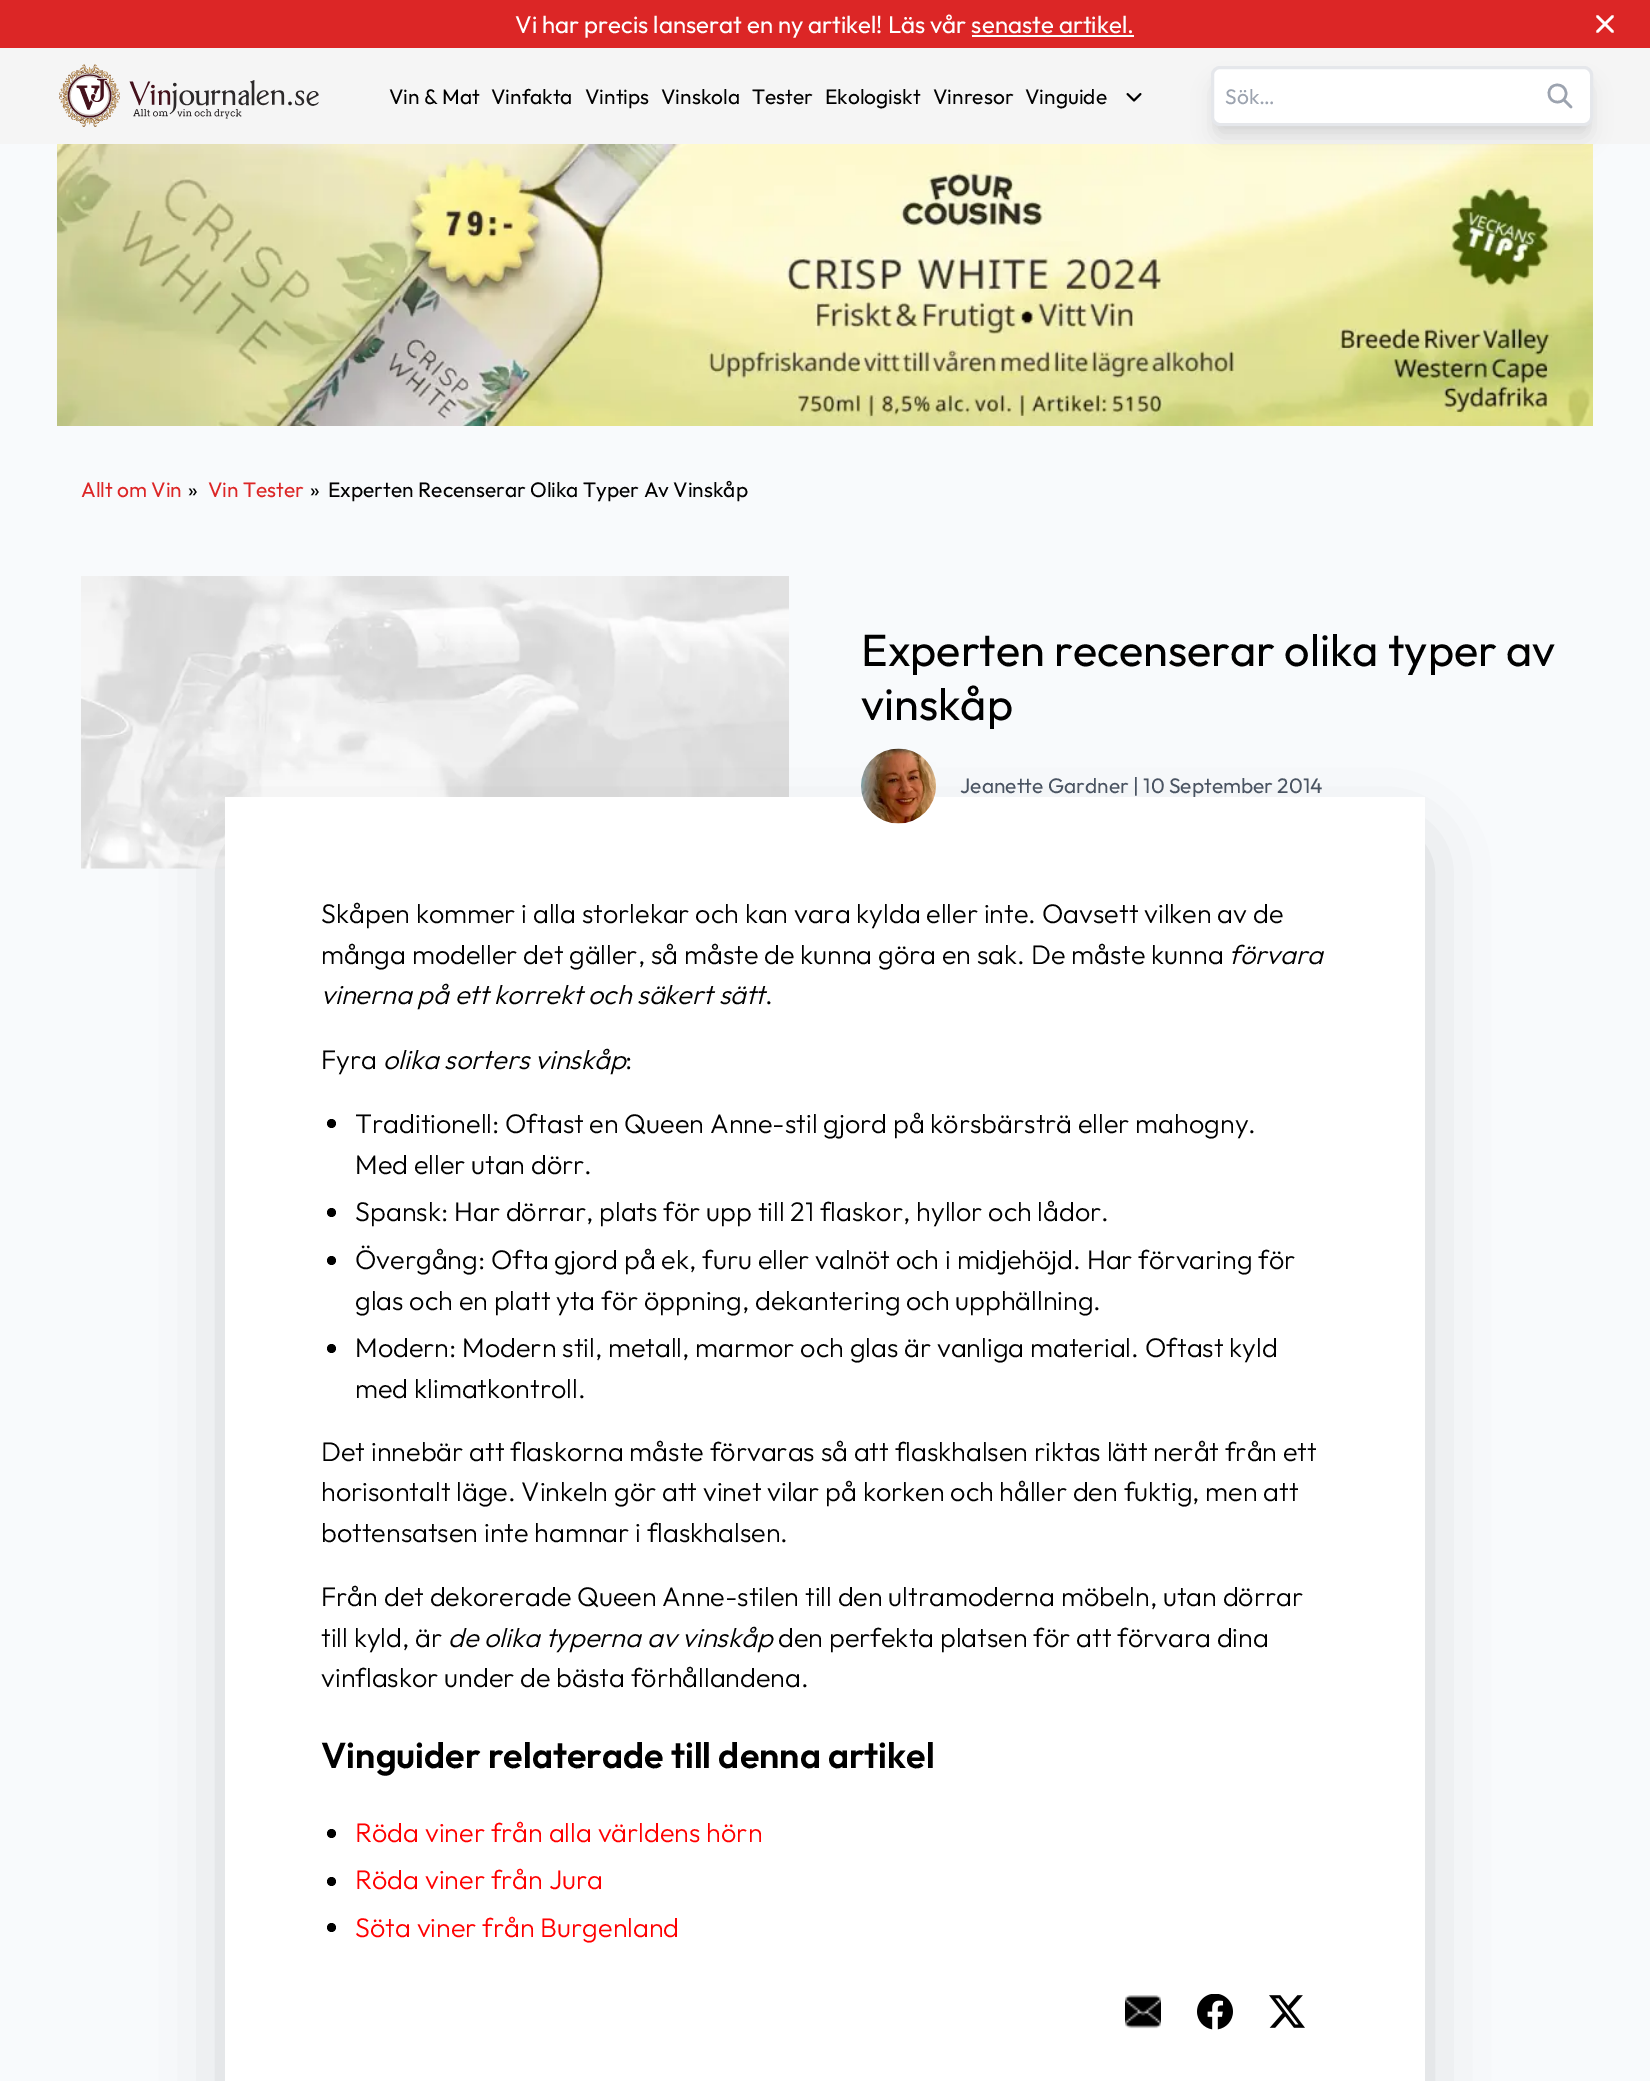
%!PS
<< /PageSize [1650 2081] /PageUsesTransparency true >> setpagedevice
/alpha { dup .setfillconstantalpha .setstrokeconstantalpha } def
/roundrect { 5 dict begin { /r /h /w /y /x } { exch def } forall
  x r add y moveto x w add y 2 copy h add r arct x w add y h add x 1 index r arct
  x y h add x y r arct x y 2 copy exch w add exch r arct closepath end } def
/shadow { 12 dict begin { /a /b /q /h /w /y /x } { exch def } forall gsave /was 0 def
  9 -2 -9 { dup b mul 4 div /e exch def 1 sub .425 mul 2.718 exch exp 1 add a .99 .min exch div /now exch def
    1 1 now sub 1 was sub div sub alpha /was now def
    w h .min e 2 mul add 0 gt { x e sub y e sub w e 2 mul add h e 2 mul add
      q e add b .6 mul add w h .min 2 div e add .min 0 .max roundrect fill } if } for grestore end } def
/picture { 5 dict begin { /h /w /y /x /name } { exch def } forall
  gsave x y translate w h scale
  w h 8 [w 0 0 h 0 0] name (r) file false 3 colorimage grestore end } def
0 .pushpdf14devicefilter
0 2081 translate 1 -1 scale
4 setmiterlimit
0.973 0.98 0.988 setrgbcolor
0 0 1650 2081 rectfill
0.863 0.149 0.149 setrgbcolor
0 0 1650 48 rectfill
/Outfit-Regular [24 0 0 -24 0 0] selectfont
1 setgray
515 33 moveto (Vi har precis lanserat en ny artikel! Läs vår senaste artikel.) show
972 35 162 2 rectfill
2.5 setlinewidth
1 setlinecap
1 setlinejoin
newpath 1612.5 16.5 moveto 1597.5 31.5 lineto 1597.5 16.5 moveto 1612.5 31.5 lineto stroke
0.961 setgray
0 48 1650 96 rectfill
(img1.rgb) 59 64 260 63 picture
/Outfit-Regular [21 0 0 -21 0 0] selectfont
0 setgray
389 104 moveto (Vin & Mat) show
491 104 moveto (Vinfakta) show
585 104 moveto (Vintips) show
661 104 moveto (Vinskola) show
752 104 moveto (Tester) show
825 104 moveto (Ekologiskt) show
933 104 moveto (Vinresor) show
1025 104 moveto (Vinguide) show
(img2.rgb) 1126 93 16 9 picture
1217 78 370 48 3 4.5 0.1 shadow
(img3.rgb) 57 144 1536 282 picture
1215 86 374 51 5 11 0.1 shadow
1 setgray
1212.5 67.5 379 57 7.5 roundrect gsave fill grestore
0.898 0.906 0.922 setrgbcolor
3 setlinewidth
0 setlinecap
0 setlinejoin
stroke
0.612 0.639 0.686 setrgbcolor
1225 104 moveto (Sök…) show
2.5 setlinewidth
1 setlinecap
1 setlinejoin
newpath 1571 107 moveto 1564 100 lineto 1566 93.5 moveto 1566 105 1549 105 1549 93.5 curveto 1548.5 82 1566 82 1566 93.5 curveto closepath stroke
0.863 0.149 0.149 setrgbcolor
81 497 moveto (Allt om Vin) show
0 setgray
188 497 moveto (») show
0.863 0.149 0.149 setrgbcolor
208 497 moveto (Vin Tester) show
0 setgray
310 497 moveto (») show
328 497 moveto (Experten Recenserar Olika Typer Av Vinskåp) show
(img4.rgb) 81 576 708 293 picture
/Outfit-Regular [45 0 0 -45 0 0] selectfont
861 666 moveto (Experten recenserar olika typer av) show
861 720 moveto (vinskåp) show
/Outfit-Regular [21 0 0 -21 0 0] selectfont
0.294 0.333 0.388 setrgbcolor
960 793 moveto (Jeanette Gardner | 10 September 2014) show
1 setgray
225 797 1200 1284 rectfill
gsave
newpath 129 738 moveto 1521 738 lineto 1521 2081 lineto 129 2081 lineto closepath 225 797 moveto 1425 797 lineto 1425 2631 lineto 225 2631 lineto closepath eoclip newpath
0 setgray
243 852 1164 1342 0 37.5 0.25 shadow
grestore
(img5.rgb) 861 748 75 76 picture
/Outfit-Light [27 0 0 -27 0 0] selectfont
0 setgray
321 923 moveto (Skåpen kommer i alla storlekar och kan vara kylda eller inte. Oavsett vilken av de) show
321 964 moveto (många modeller det gäller, så måste de kunna göra en sak. De måste kunna) show
/Outfit-LightItalic [27 0 0 -27 0 0] selectfont
1229 964 moveto (förvara) show
321 1004 moveto (vinerna på ett korrekt och säkert sätt) show
/Outfit-Light [27 0 0 -27 0 0] selectfont
765 1004 moveto (.) show
321 1069 moveto (Fyra) show
/Outfit-LightItalic [27 0 0 -27 0 0] selectfont
383 1069 moveto (olika sorters vinskåp) show
/Outfit-Light [27 0 0 -27 0 0] selectfont
625 1069 moveto (:) show
newpath 331.5 1123.5 4.5 0 360 arc closepath fill
355 1133 moveto (Traditionell: Oftast en Queen Anne-stil gjord på körsbärsträ eller mahogny.) show
355 1174 moveto (Med eller utan dörr.) show
newpath 331.5 1212.5 4.5 0 360 arc closepath fill
355 1221 moveto (Spansk: Har dörrar, plats för upp till 21 flaskor, hyllor och lådor.) show
newpath 331.5 1260.5 4.5 0 360 arc closepath fill
355 1269 moveto (Övergång: Ofta gjord på ek, furu eller valnöt och i midjehöjd. Har förvaring för) show
355 1310 moveto (glas och en platt yta för öppning, dekantering och upphällning.) show
newpath 331.5 1348.5 4.5 0 360 arc closepath fill
355 1357 moveto (Modern: Modern stil, metall, marmor och glas är vanliga material. Oftast kyld) show
355 1398 moveto (med klimatkontroll.) show
321 1461 moveto (Det innebär att flaskorna måste förvaras så att flaskhalsen riktas lätt neråt från ett) show
321 1501 moveto (horisontalt läge. Vinkeln gör att vinet vilar på korken och håller den fuktig, men att) show
321 1542 moveto (bottensatsen inte hamnar i flaskhalsen.) show
321 1606 moveto (Från det dekorerade Queen Anne-stilen till den ultramoderna möbeln, utan dörrar) show
321 1647 moveto (till kyld, är) show
/Outfit-LightItalic [27 0 0 -27 0 0] selectfont
448 1647 moveto (de olika typerna av vinskåp) show
/Outfit-Light [27 0 0 -27 0 0] selectfont
778 1647 moveto (den perfekta platsen för att förvara dina) show
321 1687 moveto (vinflaskor under de bästa förhållandena.) show
/Outfit-SemiBold [36 0 0 -36 0 0] selectfont
321 1768 moveto (Vinguider relaterade till denna artikel) show
newpath 331.5 1833.5 4.5 0 360 arc closepath fill
/Outfit-Light [27 0 0 -27 0 0] selectfont
1 0 0 setrgbcolor
355 1842 moveto (Röda viner från alla världens hörn) show
0 setgray
newpath 331.5 1881.5 4.5 0 360 arc closepath fill
1 0 0 setrgbcolor
355 1889 moveto (Röda viner från Jura) show
0 setgray
newpath 331.5 1927.5 4.5 0 360 arc closepath fill
1 0 0 setrgbcolor
355 1937 moveto (Söta viner från Burgenland) show
(img6.rgb) 1125 1995 36 34 picture
(img7.rgb) 1197 1994 36 36 picture
(img8.rgb) 1269 1995 36 33 picture
.poppdf14devicefilter showpage
